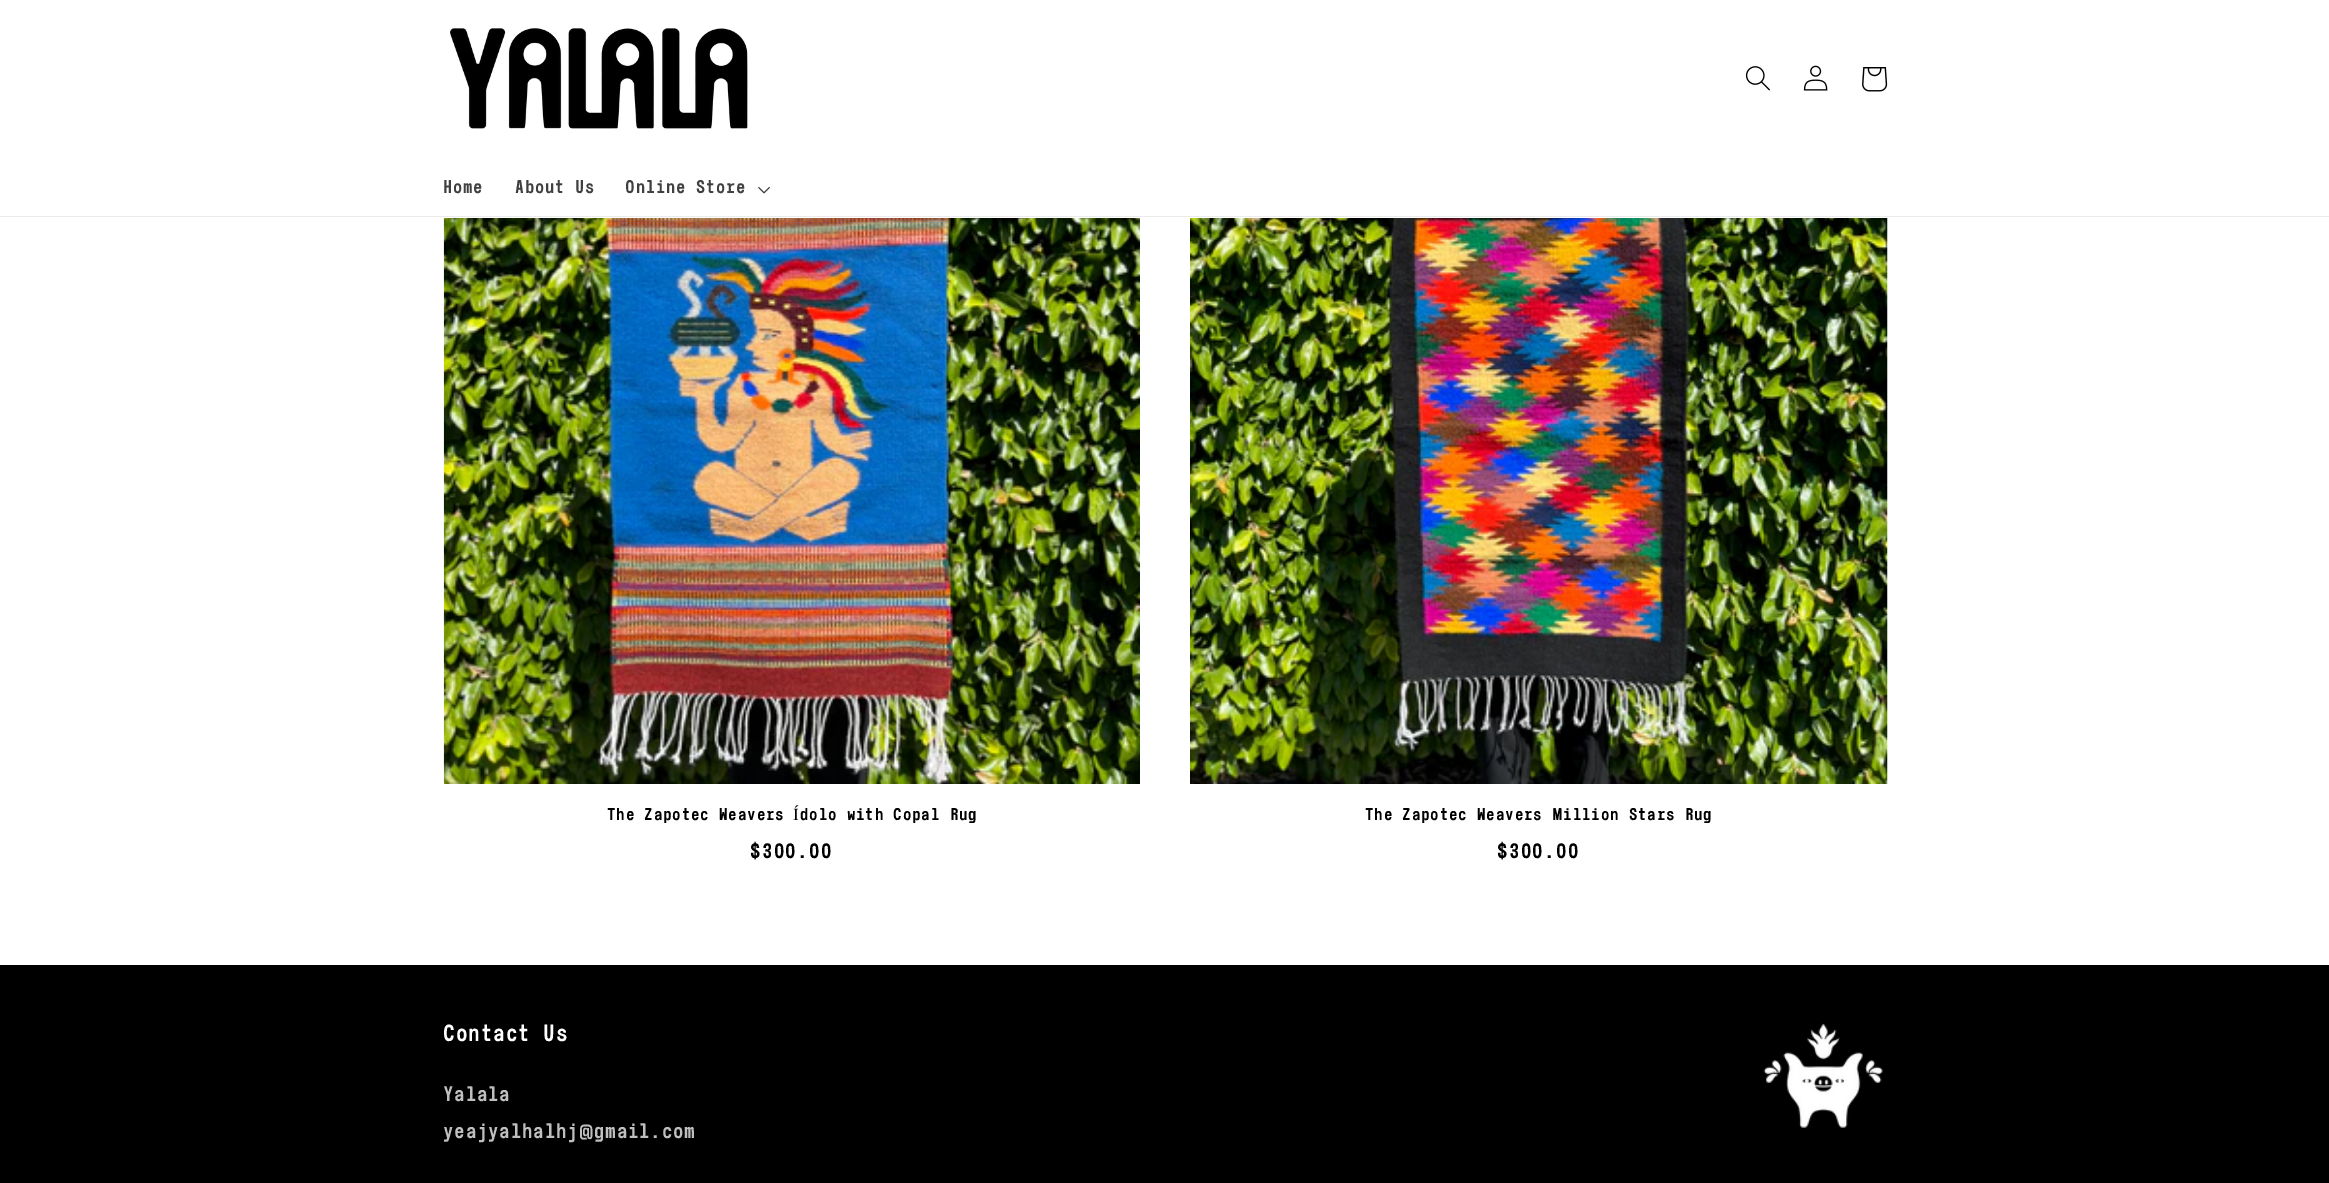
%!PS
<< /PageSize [2329 1183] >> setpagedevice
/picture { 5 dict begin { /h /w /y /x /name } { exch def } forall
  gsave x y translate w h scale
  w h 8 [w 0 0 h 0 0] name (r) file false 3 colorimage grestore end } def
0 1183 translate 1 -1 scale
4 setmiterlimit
1 setgray
0 0 2329 1183 rectfill
0.922 setgray
0 216 2329 1 rectfill
(img1.rgb) 450 28 298 101 picture
(img2.rgb) 1745 66 25 25 picture
(img3.rgb) 1803 65 25 26 picture
(img4.rgb) 1862 67 26 25 picture
/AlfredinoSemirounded-Regular [18.5 0 0 -18.5 0 0] selectfont
0.251 setgray
443 193 moveto 0.8 0 (Home) ashow
515 193 moveto 0.8 0 (About Us) ashow
625 193 moveto 0.8 0 (Online Store) ashow
(img5.rgb) 758 187 12 7 picture
(img6.rgb) 443 218 697 566 picture
/AlfredinoSemirounded-Regular [17.1 0 0 -17.1 0 0] selectfont
0 setgray
607 820 moveto 0.8 0 (The Zapotec Weavers) ashow
/LiberationSerif-Regular [17.1 0 0 -17.1 0 0] selectfont
793 820 moveto 0.8 0 (Í) ashow
/AlfredinoSemirounded-Regular [17.1 0 0 -17.1 0 0] selectfont
800 820 moveto 0.8 0 (dolo with Copal Rug) ashow
/AlfredinoSemirounded-Regular [21 0 0 -21 0 0] selectfont
750 858 moveto 1.25 0 ($300.00) ashow
(img7.rgb) 1190 218 698 566 picture
/AlfredinoSemirounded-Regular [17.1 0 0 -17.1 0 0] selectfont
1365 820 moveto 0.8 0 (The Zapotec Weavers Million Stars Rug) ashow
/AlfredinoSemirounded-Regular [21 0 0 -21 0 0] selectfont
1497 858 moveto 1.25 0 ($300.00) ashow
0 965 2329 218 rectfill
/AlfredinoSemirounded-Regular [23.5 0 0 -23.5 0 0] selectfont
1 setgray
443 1041 moveto 0.8 0 (Contact Us) ashow
/AlfredinoSemirounded-Regular [21 0 0 -21 0 0] selectfont
0.749 setgray
443 1101 moveto 0.8 0 (Yalala) ashow
443 1138 moveto 0.8 0 (yeajyalhalhj@gmail.com) ashow
(img8.rgb) 1763 1023 120 105 picture
showpage
